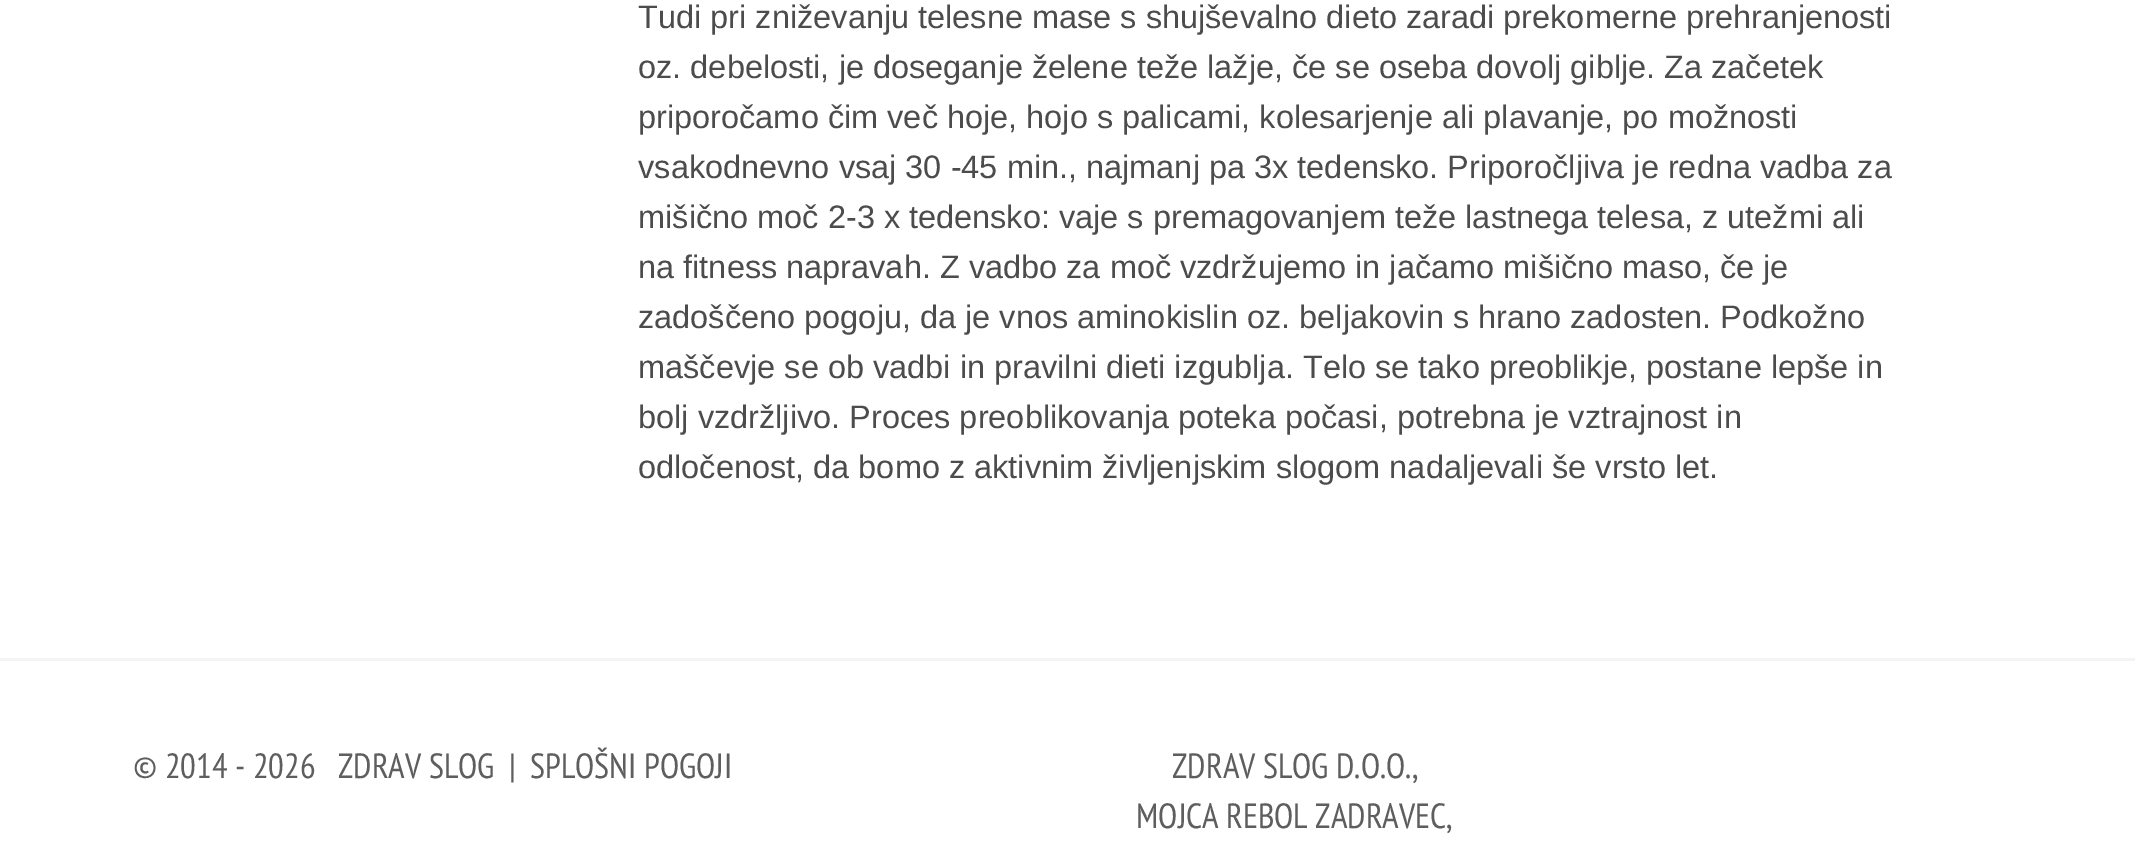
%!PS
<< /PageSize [2135 851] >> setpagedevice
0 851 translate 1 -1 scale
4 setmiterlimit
1 setgray
0 0 2135 851 rectfill
/LiberationSans-Regular [32.5 0 0 -32.5 0 0] selectfont
0.298 setgray
638 28 moveto (Tudi pri zniževanju telesne mase s shujševalno dieto zaradi prekomerne prehranjenosti) show
638 78 moveto (oz. debelosti, je doseganje želene teže lažje, če se oseba dovolj giblje. Za začetek) show
638 128 moveto (priporočamo čim več hoje, hojo s palicami, kolesarjenje ali plavanje, po možnosti) show
638 178 moveto (vsakodnevno vsaj 30 -45 min., najmanj pa 3x tedensko. Priporočljiva je redna vadba za) show
638 228 moveto (mišično moč 2-3 x tedensko: vaje s premagovanjem teže lastnega telesa, z utežmi ali) show
638 278 moveto (na fitness napravah. Z vadbo za moč vzdržujemo in jačamo mišično maso, če je) show
638 328 moveto (zadoščeno pogoju, da je vnos aminokislin oz. beljakovin s hrano zadosten. Podkožno) show
638 378 moveto (maščevje se ob vadbi in pravilni dieti izgublja. Telo se tako preoblikje, postane lepše in) show
638 428 moveto (bolj vzdržljivo. Proces preoblikovanja poteka počasi, potrebna je vztrajnost in) show
638 478 moveto (odločenost, da bomo z aktivnim življenjskim slogom nadaljevali še vrsto let.) show
0.957 setgray
0 658 2135 3 rectfill
/PTSansNarrow-Regular [35 0 0 -35 0 0] selectfont
0.369 setgray
133 778 moveto (© 2014 - 2026   ZDRAV SLOG  |) show
530 778 moveto (SPLOŠNI POGOJI) show
1172 778 moveto (ZDRAV SLOG D.O.O.,) show
1136 828 moveto (MOJCA REBOL ZADRAVEC,) show
showpage
